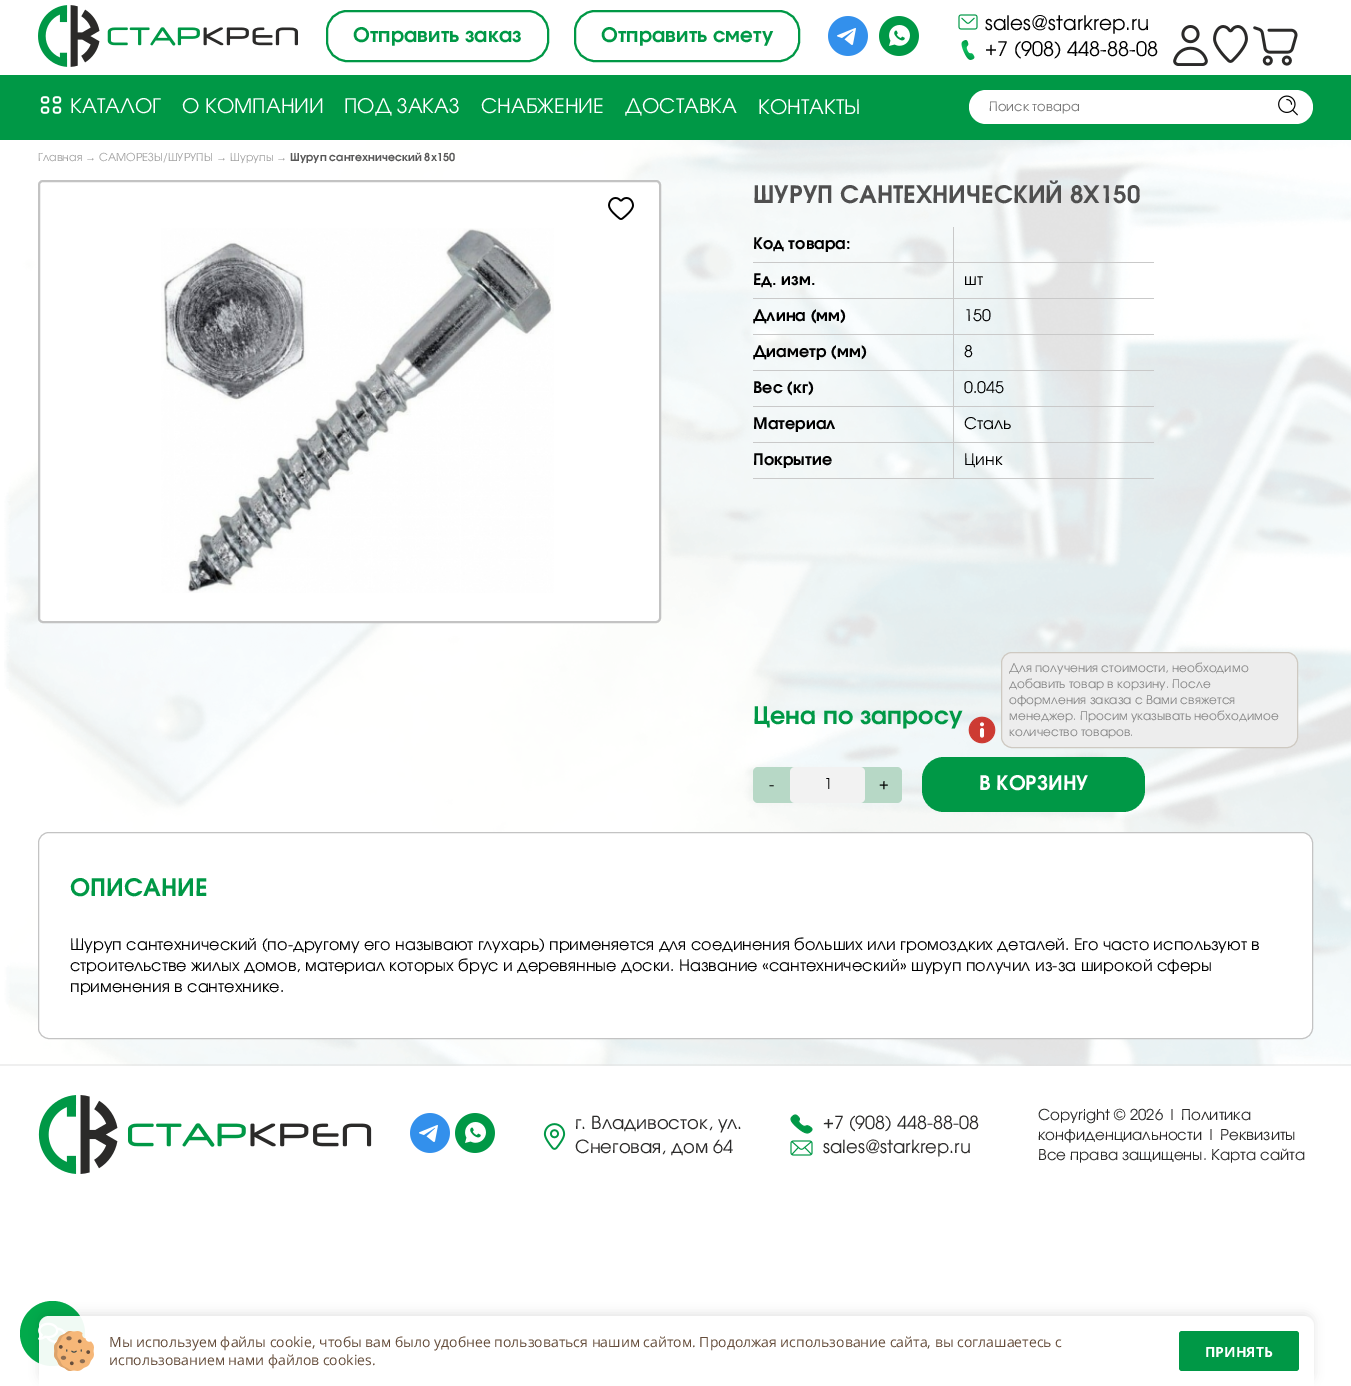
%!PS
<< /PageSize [1351 1386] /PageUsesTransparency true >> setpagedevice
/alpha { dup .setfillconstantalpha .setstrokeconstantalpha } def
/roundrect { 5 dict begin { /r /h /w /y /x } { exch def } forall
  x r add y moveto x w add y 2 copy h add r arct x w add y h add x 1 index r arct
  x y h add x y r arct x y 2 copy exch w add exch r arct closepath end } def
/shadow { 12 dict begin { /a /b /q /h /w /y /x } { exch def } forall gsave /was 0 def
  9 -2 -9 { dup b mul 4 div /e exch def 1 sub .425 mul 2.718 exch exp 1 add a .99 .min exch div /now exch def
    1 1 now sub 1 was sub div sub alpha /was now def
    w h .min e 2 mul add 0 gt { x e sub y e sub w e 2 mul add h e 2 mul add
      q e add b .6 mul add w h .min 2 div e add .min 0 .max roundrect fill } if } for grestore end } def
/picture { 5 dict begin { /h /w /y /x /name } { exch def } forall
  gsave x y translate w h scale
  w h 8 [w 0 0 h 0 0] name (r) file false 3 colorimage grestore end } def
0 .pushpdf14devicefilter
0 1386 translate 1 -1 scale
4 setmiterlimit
1 setgray
0 0 1351 1386 rectfill
(img1.rgb) 4 140 1347 926 picture
(img2.rgb) 38 5 260 62 picture
0 0.596 0.275 setrgbcolor
2 setlinewidth
327 11 221 50 20 roundrect stroke
/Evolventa-Bold [20 0 0 -20 0 0] selectfont
353 42 moveto (Отправить заказ) show
575 11 224 50 20 roundrect stroke
601 42 moveto (Отправить смету) show
(img3.rgb) 828 16 40 40 picture
(img4.rgb) 879 16 40 40 picture
(img5.rgb) 958 14 20 16 picture
/Evolventa-Regular [20 0 0 -20 0 0] selectfont
0 setgray
985 30 moveto (sales@starkrep.ru) show
(img6.rgb) 961 40 14 20 picture
985 56 moveto (+7 \(908\) 448-88-08) show
(img7.rgb) 1173 25 35 41 picture
(img8.rgb) 1213 25 35 38 picture
(img9.rgb) 1253 26 45 40 picture
0 0.596 0.275 setrgbcolor
0 75 1351 65 rectfill
(img10.rgb) 40 96 22 18 picture
1 setgray
70 113 moveto (КАТАЛОГ) show
182 113 moveto (О КОМПАНИИ) show
344 113 moveto (ПОД ЗАКАЗ) show
481 113 moveto (СНАБЖЕНИЕ) show
625 113 moveto (ДОСТАВКА) show
758 114 moveto (КОНТАКТЫ) show
969 90 344 34 17 roundrect fill
/Evolventa-Regular [13 0 0 -13 0 0] selectfont
0.459 setgray
989 111 moveto (Поиск товара) show
(img11.rgb) 1278 95 20 21 picture
/Evolventa-Regular [11 0 0 -11 0 0] selectfont
0.627 setgray
38 161 moveto (Главная) show
/LiberationSans-Regular [11 0 0 -11 0 0] selectfont
85 161 moveto (→) show
/Evolventa-Regular [11 0 0 -11 0 0] selectfont
99 161 moveto (САМОРЕЗЫ/ШУРУПЫ) show
/LiberationSans-Regular [11 0 0 -11 0 0] selectfont
216 161 moveto (→) show
/Evolventa-Regular [11 0 0 -11 0 0] selectfont
230 161 moveto (Шурупы) show
/LiberationSans-Regular [11 0 0 -11 0 0] selectfont
276 161 moveto (→) show
/Evolventa-Bold [11 0 0 -11 0 0] selectfont
0.345 setgray
290 161 moveto (Шуруп сантехнический 8х150) show
1 setgray
39 181 621 441 4 roundrect gsave fill grestore
0.765 setgray
stroke
(img12.rgb) 161 228 393 365 picture
(img13.rgb) 608 197 26 23 picture
/Evolventa-Bold [24 0 0 -24 0 0] selectfont
0.31 setgray
753 203 moveto (ШУРУП САНТЕХНИЧЕСКИЙ 8Х150) show
0.788 setgray
953 478 201 1 rectfill
953 442 1 37 rectfill
953 442 201 1 rectfill
953 406 1 37 rectfill
953 406 201 1 rectfill
953 370 1 37 rectfill
953 370 201 1 rectfill
953 334 1 37 rectfill
953 334 201 1 rectfill
953 298 1 37 rectfill
953 298 201 1 rectfill
953 262 1 37 rectfill
953 262 201 1 rectfill
953 227 1 36 rectfill
753 262 201 1 rectfill
/Evolventa-Bold [16 0 0 -16 0 0] selectfont
0 setgray
753 249 moveto (Код товара:) show
0.788 setgray
753 298 201 1 rectfill
0 setgray
753 285 moveto (Ед. изм.) show
/Evolventa-Regular [16 0 0 -16 0 0] selectfont
964 285 moveto (шт) show
0.788 setgray
753 334 201 1 rectfill
/Evolventa-Bold [16 0 0 -16 0 0] selectfont
0 setgray
753 321 moveto (Длина \(мм\)) show
/Evolventa-Regular [16 0 0 -16 0 0] selectfont
964 321 moveto (150) show
0.788 setgray
753 370 201 1 rectfill
/Evolventa-Bold [16 0 0 -16 0 0] selectfont
0 setgray
753 357 moveto (Диаметр \(мм\)) show
/Evolventa-Regular [16 0 0 -16 0 0] selectfont
964 357 moveto (8) show
0.788 setgray
753 406 201 1 rectfill
/Evolventa-Bold [16 0 0 -16 0 0] selectfont
0 setgray
753 393 moveto (Вес \(кг\)) show
/Evolventa-Regular [16 0 0 -16 0 0] selectfont
964 393 moveto (0.045) show
0.788 setgray
753 442 201 1 rectfill
/Evolventa-Bold [16 0 0 -16 0 0] selectfont
0 setgray
753 429 moveto (Материал) show
/Evolventa-Regular [16 0 0 -16 0 0] selectfont
964 429 moveto (Сталь) show
0.788 setgray
753 478 201 1 rectfill
/Evolventa-Bold [16 0 0 -16 0 0] selectfont
0 setgray
753 465 moveto (Покрытие) show
/Evolventa-Regular [16 0 0 -16 0 0] selectfont
964 465 moveto (Цинк) show
/Evolventa-Bold [24 0 0 -24 0 0] selectfont
0 0.596 0.275 setrgbcolor
753 724 moveto (Цена по запросу) show
0.929 setgray
1001.5 652.5 296 95 10.5 roundrect gsave fill grestore
0.808 0.788 0.757 setrgbcolor
1 setlinewidth
stroke
/Evolventa-Regular [12 0 0 -12 0 0] selectfont
0.529 setgray
1009 672 moveto (Для получения стоимости, необходимо) show
1009 688 moveto (добавить товар в корзину. После) show
1009 704 moveto (оформления заказа с Вами свяжется) show
(img14.rgb) 968 716 28 28 picture
1009 720 moveto (менеджер. Просим указывать необходимое) show
1009 736 moveto (количество товаров.) show
0.718 0.847 0.776 setrgbcolor
753 767 149 36 5 roundrect fill
/Evolventa-Regular [16 0 0 -16 0 0] selectfont
0 setgray
769 790 moveto (-) show
0.949 setgray
790 767 75 36 5 roundrect fill
/Evolventa-Regular [15 0 0 -15 0 0] selectfont
0 setgray
824 789 moveto (1) show
/Evolventa-Regular [16 0 0 -16 0 0] selectfont
879 790 moveto (+) show
0 0.596 0.275 setrgbcolor
922 757 223 55 22 roundrect fill
/Evolventa-Bold [20 0 0 -20 0 0] selectfont
1 setgray
979 790 moveto (В КОРЗИНУ) show
38.5 832.5 1274 206 10.5 roundrect gsave fill grestore
0.765 setgray
stroke
/Evolventa-Bold [24 0 0 -24 0 0] selectfont
0 0.596 0.275 setrgbcolor
70 896 moveto (ОПИСАНИЕ) show
/Evolventa-Regular [16 0 0 -16 0 0] selectfont
0 setgray
70 950 moveto (Шуруп сантехнический \(по-другому его называют глухарь\) применяется для соединения больших или громоздких деталей. Его часто используют в) show
70 971 moveto (строительстве жилых домов, материал которых брус и деревянные доски. Название «сантехнический» шуруп получил из-за широкой сферы) show
70 992 moveto (применения в сантехнике.) show
0.5 alpha
0.878 setgray
0 1064 1351 2 rectfill
1 alpha
(img15.rgb) 38 1095 334 79 picture
(img3.rgb) 410 1113 40 40 picture
(img4.rgb) 455 1113 40 40 picture
(img16.rgb) 543 1123 23 27 picture
/Evolventa-Regular [18 0 0 -18 0 0] selectfont
0.169 0.165 0.161 setrgbcolor
575 1129 moveto (г. Владивосток, ул.) show
575 1153 moveto (Снеговая, дом 64) show
(img17.rgb) 790 1114 23 20 picture
823 1129 moveto (+7 \(908\) 448-88-08) show
(img18.rgb) 790 1140 23 16 picture
823 1153 moveto (sales@starkrep.ru) show
/Evolventa-Regular [15 0 0 -15 0 0] selectfont
1038 1120 moveto (Copyright © 2026 | Политика) show
1038 1140 moveto (конфиденциальности | Реквизиты) show
1038 1160 moveto (Все права защищены. Карта сайта) show
0.008 0.667 0.294 setrgbcolor
newpath 52.5 1333.5 32.5 0 360 arc closepath fill
(img19.rgb) 38 1322 28 21 picture
gsave
newpath 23 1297 moveto 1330 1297 lineto 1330 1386 lineto 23 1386 lineto closepath 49 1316 moveto 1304 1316 lineto 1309.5 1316 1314 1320.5 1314 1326 curveto 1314 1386 lineto 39 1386 lineto 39 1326 lineto 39 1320.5 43.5 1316 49 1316 curveto closepath eoclip newpath
0 setgray
39 1313 1275 70 10 5 0.1 shadow
grestore
0.94 alpha
1 setgray
newpath 49 1316 moveto 1304 1316 lineto 1309.5 1316 1314 1320.5 1314 1326 curveto 1314 1386 lineto 39 1386 lineto 39 1326 lineto 39 1320.5 43.5 1316 49 1316 curveto closepath fill
1 alpha
(img20.rgb) 54 1331 40 40 picture
/OpenSans-Regular [14 0 0 -14 0 0] selectfont
0.396 0.302 0.231 setrgbcolor
109 1347 moveto (Мы используем файлы cookie, чтобы вам было удобнее пользоваться нашим сайтом. Продолжая использование сайта, вы соглашаетесь c) show
109 1365 moveto (использованием нами файлов cookies.) show
0 0.596 0.275 setrgbcolor
1179 1331 120 40 3 roundrect fill
/OpenSans-Bold [14 0 0 -14 0 0] selectfont
1 setgray
1205 1357 moveto (ПРИНЯТЬ) show
.poppdf14devicefilter showpage
